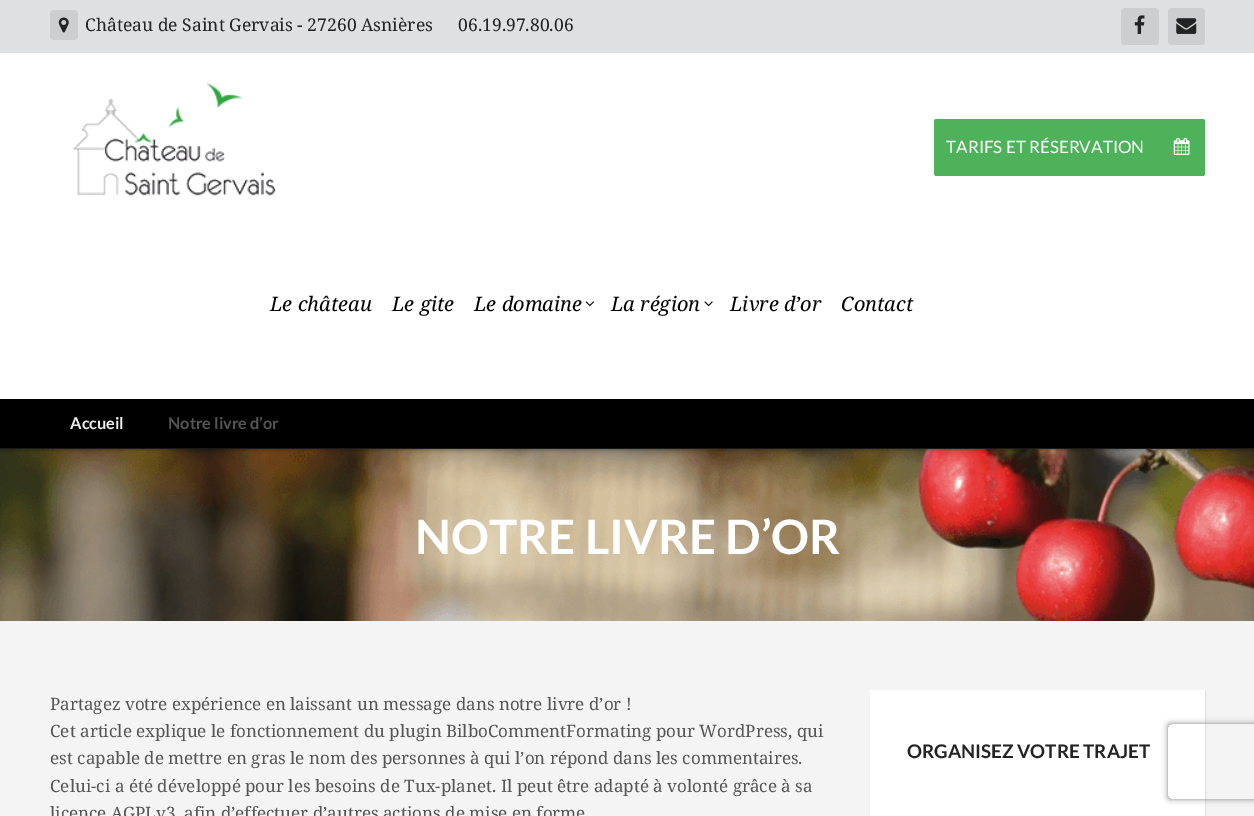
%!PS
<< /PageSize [1254 816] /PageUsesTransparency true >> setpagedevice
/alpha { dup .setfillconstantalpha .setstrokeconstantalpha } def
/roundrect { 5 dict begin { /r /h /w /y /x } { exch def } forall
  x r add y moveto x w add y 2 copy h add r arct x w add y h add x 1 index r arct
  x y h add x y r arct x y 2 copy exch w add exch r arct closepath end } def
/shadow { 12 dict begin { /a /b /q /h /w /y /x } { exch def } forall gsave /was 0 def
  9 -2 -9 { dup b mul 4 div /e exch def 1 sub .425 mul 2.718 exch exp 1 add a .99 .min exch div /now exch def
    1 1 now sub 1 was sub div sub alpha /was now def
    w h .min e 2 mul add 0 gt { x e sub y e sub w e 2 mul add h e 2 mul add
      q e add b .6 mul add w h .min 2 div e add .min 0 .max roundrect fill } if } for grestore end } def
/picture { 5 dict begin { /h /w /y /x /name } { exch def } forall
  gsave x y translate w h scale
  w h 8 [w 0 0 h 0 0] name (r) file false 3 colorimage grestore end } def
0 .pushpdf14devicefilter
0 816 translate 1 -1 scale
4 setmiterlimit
1 setgray
0 0 1254 816 rectfill
(img8.rgb) 0 449 1254 172 picture
0 setgray
0 399 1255 50 0 2.5 0.4 shadow
1 setgray
0 394 1254 5 rectfill
0.875 0.878 0.882 setrgbcolor
0 0 1254 53 rectfill
0.804 0.808 0.812 setrgbcolor
50 10 28 30 4 roundrect fill
(img1.rgb) 58 17 11 16 picture
/NotoSerif-Regular [17.5 0 0 -17.5 0 0] selectfont
0.137 setgray
85 31 moveto (Château de Saint Gervais - 27260 Asnières) show
458 31 moveto (06.19.97.80.06) show
0.804 0.808 0.812 setrgbcolor
1121 8 38 37 4 roundrect fill
(img2.rgb) 1134 15 11 19 picture
1168 8 37 37 4 roundrect fill
(img3.rgb) 1176 18 21 16 picture
(img4.rgb) 72 82 204 114 picture
0.306 0.698 0.357 setrgbcolor
934 119 271 57 2.5 roundrect fill
/Lato-Regular [17 0 0 -17 0 0] selectfont
1 setgray
946 153 moveto (TARIFS ET RÉSERVATION) show
0.306 0.698 0.357 setrgbcolor
1159 119 46 57 2.5 roundrect fill
(img5.rgb) 1173 137 17 18 picture
/NotoSerif-Italic [20 0 0 -20 0 0] selectfont
0 setgray
270 311 moveto (Le château) show
392 311 moveto (Le gite) show
474 311 moveto (Le domaine) show
(img6.rgb) 585 301 9 6 picture
611 311 moveto (La région) show
(img7.rgb) 704 301 9 6 picture
730 311 moveto (Livre d’or) show
841 311 moveto (Contact) show
0 399 1254 49 rectfill
0.102 setgray
0 448 1254 1 rectfill
/Lato-Bold [16.25 0 0 -16.25 0 0] selectfont
0.933 setgray
70 429 moveto (Accueil) show
0 setgray
newpath 142 449 moveto 142 399 lineto 168 424 lineto closepath fill
0.333 setgray
168 429 moveto (Notre livre d’or) show
/Lato-Bold [47.5 0 0 -47.5 0 0] selectfont
1 setgray
415 554 moveto (NOTRE LIVRE D’OR) show
0.957 setgray
0 621 1254 195 rectfill
/NotoSerif-Regular [17 0 0 -17 0 0] selectfont
0.333 setgray
50 710 moveto (Partagez votre expérience en laissant un message dans notre livre d’or !) show
50 737 moveto (Cet article explique le fonctionnement du plugin BilboCommentFormating pour WordPress, qui) show
50 764 moveto (est capable de mettre en gras le nom des personnes à qui l’on répond dans les commentaires.) show
50 792 moveto (Celui-ci a été développé pour les besoins de Tux-planet. Il peut être adapté à volonté grâce à sa) show
50 819 moveto (licence AGPLv3, afin d’effectuer d’autres actions de mise en forme) show
0 setgray
871 691 335 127 0 0.5 0.08 shadow
1 setgray
870 690 335 126 rectfill
/Lato-Bold [18.75 0 0 -18.75 0 0] selectfont
0.137 setgray
907 758 moveto (ORGANISEZ VOTRE TRAJET) show
gsave
newpath 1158 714 moveto 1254 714 lineto 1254 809 lineto 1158 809 lineto closepath 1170.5 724 moveto 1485.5 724 lineto 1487 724 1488 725 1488 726.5 curveto 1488 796.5 lineto 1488 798 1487 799 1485.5 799 curveto 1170.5 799 lineto 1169 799 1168 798 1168 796.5 curveto 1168 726.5 lineto 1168 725 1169 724 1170.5 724 curveto closepath eoclip newpath
0.502 setgray
1168 724 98 75 2.5 3 1 shadow
grestore
.poppdf14devicefilter showpage
